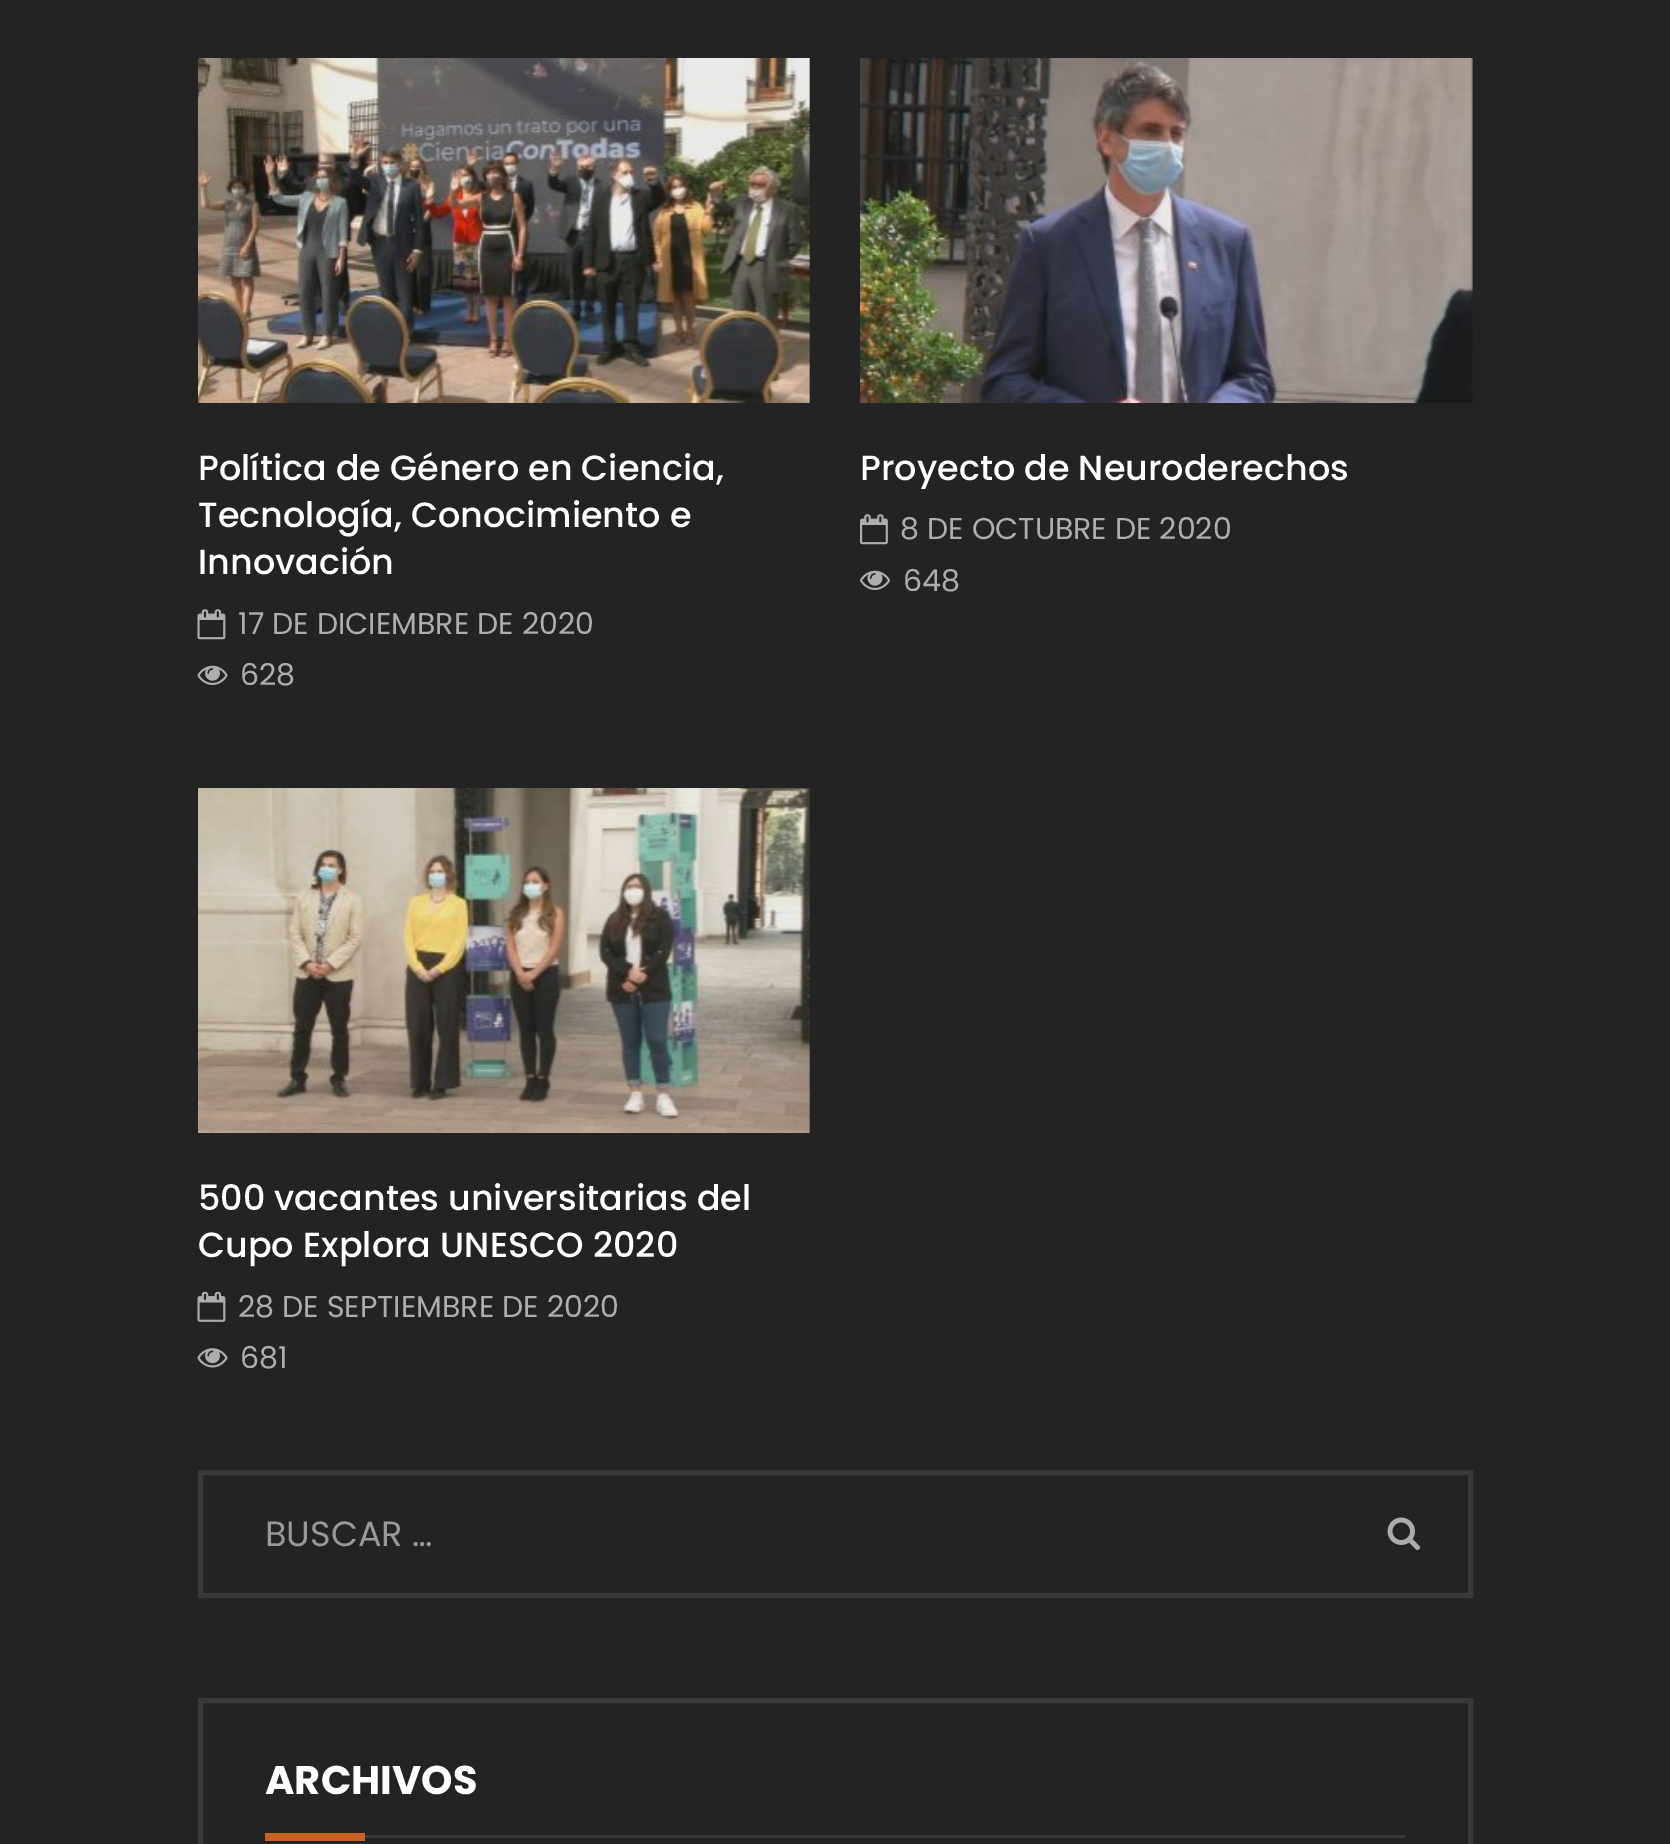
%!PS
<< /PageSize [1670 1844] >> setpagedevice
/picture { 5 dict begin { /h /w /y /x /name } { exch def } forall
  gsave x y translate w h scale
  w h 8 [w 0 0 h 0 0] name (r) file false 3 colorimage grestore end } def
0 1844 translate 1 -1 scale
4 setmiterlimit
0.137 setgray
0 0 1670 1844 rectfill
(img1.rgb) 198 58 612 345 picture
/Poppins-Medium [35 0 0 -35 0 0] selectfont
1 setgray
198 480 moveto (Política de Género en Ciencia,) show
198 527 moveto (Tecnología, Conocimiento e) show
198 574 moveto (Innovación) show
(img2.rgb) 197 609 29 31 picture
/Poppins-Regular [30 0 0 -30 0 0] selectfont
0.682 setgray
238 634 moveto (17 DE DICIEMBRE DE 2020) show
(img3.rgb) 197 665 31 20 picture
240 685 moveto (628) show
(img4.rgb) 860 58 613 345 picture
/Poppins-Medium [35 0 0 -35 0 0] selectfont
1 setgray
860 480 moveto (Proyecto de Neuroderechos) show
(img5.rgb) 860 514 28 31 picture
/Poppins-Regular [30 0 0 -30 0 0] selectfont
0.682 setgray
900 539 moveto (8 DE OCTUBRE DE 2020) show
(img6.rgb) 860 570 30 20 picture
903 591 moveto (648) show
(img7.rgb) 198 788 612 345 picture
/Poppins-Medium [35 0 0 -35 0 0] selectfont
1 setgray
198 1210 moveto (500 vacantes universitarias del) show
198 1257 moveto (Cupo Explora UNESCO 2020) show
(img8.rgb) 197 1291 29 31 picture
/Poppins-Regular [30 0 0 -30 0 0] selectfont
0.682 setgray
238 1317 moveto (28 DE SEPTIEMBRE DE 2020) show
(img9.rgb) 197 1348 31 20 picture
240 1368 moveto (681) show
0.224 setgray
5 setlinewidth
200.5 1472.5 1270 123 rectstroke
/Poppins-Regular [35 0 0 -35 0 0] selectfont
0.6 setgray
265 1546 moveto (BUSCAR …) show
(img10.rgb) 1387 1517 33 33 picture
0.224 setgray
200.5 1700.5 1270 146 rectstroke
/Poppins-Bold [40 0 0 -40 0 0] selectfont
1 setgray
265 1794 moveto (ARCHIVOS) show
0.796 0.38 0.145 setrgbcolor
265 1833 100 8 rectfill
0.224 setgray
365 1835 1040 3 rectfill
showpage
